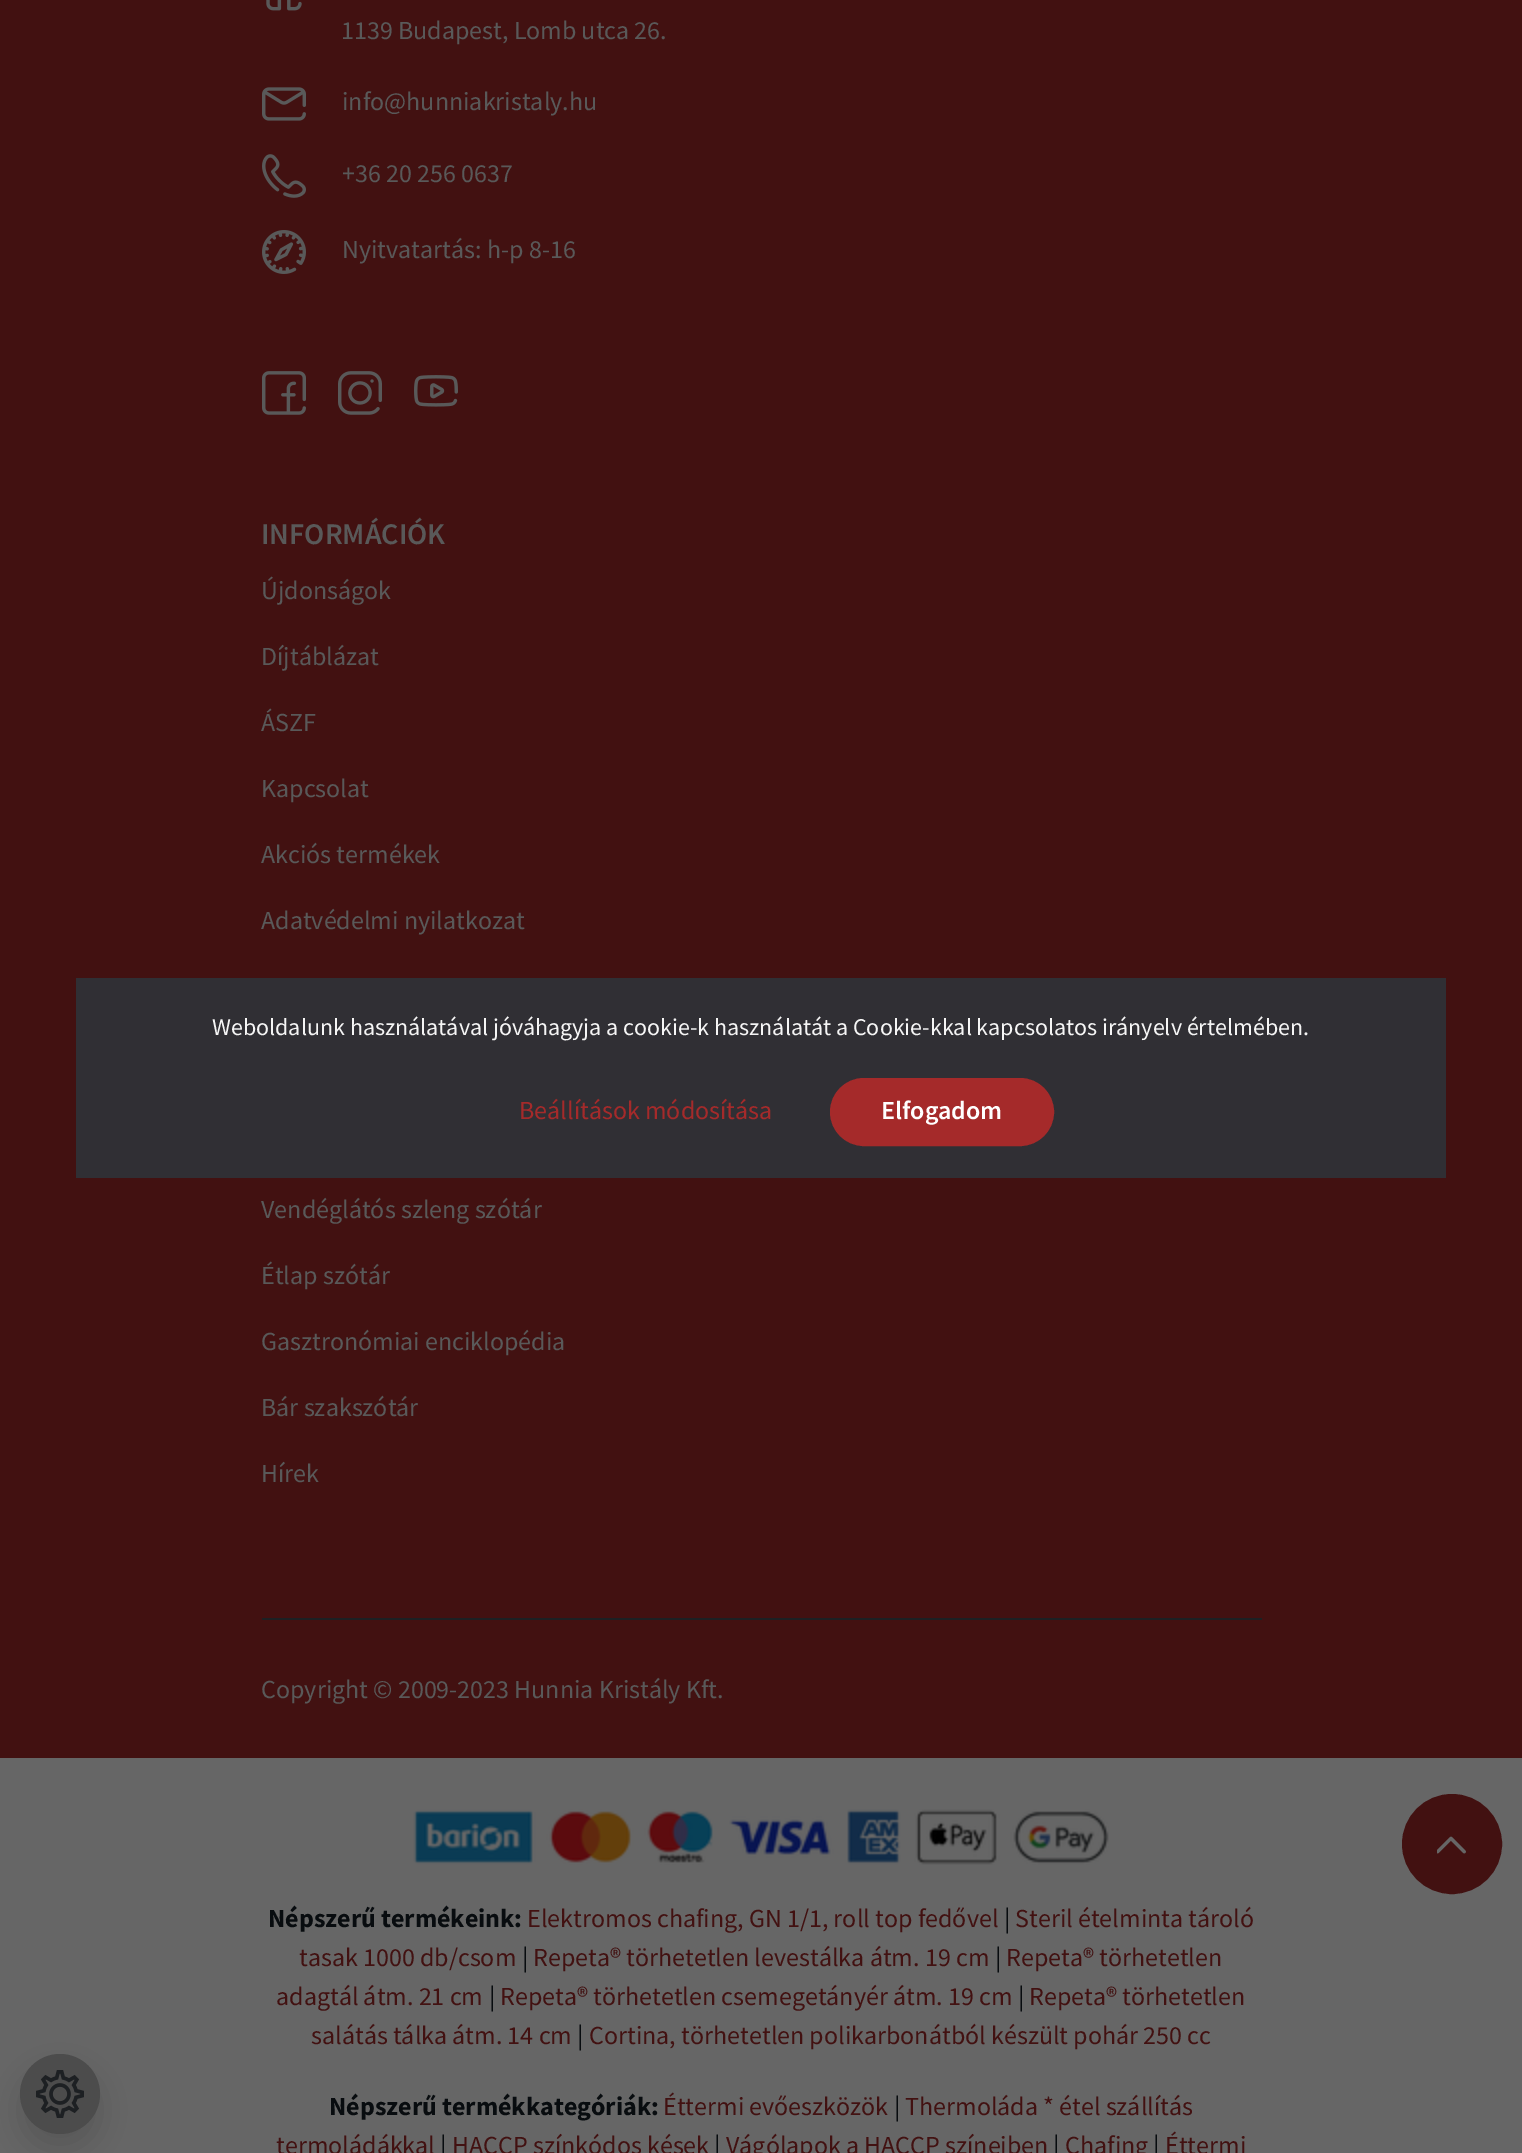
%!PS
<< /PageSize [1522 2153] /PageUsesTransparency true >> setpagedevice
/alpha { dup .setfillconstantalpha .setstrokeconstantalpha } def
/roundrect { 5 dict begin { /r /h /w /y /x } { exch def } forall
  x r add y moveto x w add y 2 copy h add r arct x w add y h add x 1 index r arct
  x y h add x y r arct x y 2 copy exch w add exch r arct closepath end } def
/shadow { 12 dict begin { /a /b /q /h /w /y /x } { exch def } forall gsave /was 0 def
  9 -2 -9 { dup b mul 4 div /e exch def 1 sub .425 mul 2.718 exch exp 1 add a .99 .min exch div /now exch def
    1 1 now sub 1 was sub div sub alpha /was now def
    w h .min e 2 mul add 0 gt { x e sub y e sub w e 2 mul add h e 2 mul add
      q e add b .6 mul add w h .min 2 div e add .min 0 .max roundrect fill } if } for grestore end } def
/picture { 5 dict begin { /h /w /y /x /name } { exch def } forall
  gsave x y translate w h scale
  w h 8 [w 0 0 h 0 0] name (r) file false 3 colorimage grestore end } def
0 .pushpdf14devicefilter
0 2153 translate 1 -1 scale
4 setmiterlimit
0.4 setgray
0 0 1522 2153 rectfill
0.259 0.067 0.067 setrgbcolor
0 0 1522 1758 rectfill
(img1.rgb) 266 0 36 11 picture
/SourceSansPro-Regular [26 0 0 -26 0 0] selectfont
0.349 setgray
341 39 moveto (1139 Budapest, Lomb utca 26.) show
(img2.rgb) 262 87 44 34 picture
342 110 moveto (info@hunniakristaly.hu) show
(img3.rgb) 262 154 44 44 picture
342 182 moveto (+36 20 256 0637) show
(img4.rgb) 262 230 44 44 picture
342 258 moveto (Nyitvatartás: h-p 8-16) show
(img5.rgb) 262 371 44 44 picture
(img6.rgb) 338 371 44 44 picture
(img7.rgb) 414 375 44 32 picture
/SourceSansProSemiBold-SemiBold [30 0 0 -30 0 0] selectfont
261 544 moveto (INFORMÁCIÓK) show
/SourceSansPro-Regular [26 0 0 -26 0 0] selectfont
261 599 moveto (Újdonságok) show
261 665 moveto (Díjtáblázat) show
261 731 moveto (ÁSZF) show
261 797 moveto (Kapcsolat) show
261 863 moveto (Akciós termékek) show
261 929 moveto (Adatvédelmi nyilatkozat) show
261 1218 moveto (Vendéglátós szleng szótár) show
261 1284 moveto (Étlap szótár) show
261 1350 moveto (Gasztronómiai enciklopédia) show
261 1416 moveto (Bár szakszótár) show
261 1482 moveto (Hírek) show
0.114 0.125 0.137 setrgbcolor
262 1618 1000 2 rectfill
0.349 setgray
261 1698 moveto (Copyright © 2009-2023 Hunnia Kristály Kft.) show
0.259 0.067 0.067 setrgbcolor
newpath 1452 1844 49 0 360 arc closepath gsave fill grestore
2 setlinewidth
stroke
(img8.rgb) 1437 1836 29 18 picture
(img9.rgb) 413 1809 696 56 picture
/SourceSansPro-Bold [26 0 0 -26 0 0] selectfont
0.031 0.047 0.059 setrgbcolor
268 1927 moveto (Népszerű termékeink:) show
/SourceSansPro-Regular [26 0 0 -26 0 0] selectfont
0.259 0.067 0.067 setrgbcolor
527 1927 moveto (Elektromos chafing, GN 1/1, roll top fedővel) show
0.031 0.047 0.059 setrgbcolor
1004 1927 moveto (|) show
0.259 0.067 0.067 setrgbcolor
1015 1927 moveto (Steril ételminta tároló) show
299 1966 moveto (tasak 1000 db/csom) show
0.031 0.047 0.059 setrgbcolor
522 1966 moveto (|) show
0.259 0.067 0.067 setrgbcolor
533 1966 moveto (Repeta® törhetetlen levestálka átm. 19 cm) show
0.031 0.047 0.059 setrgbcolor
995 1966 moveto (|) show
0.259 0.067 0.067 setrgbcolor
1006 1966 moveto (Repeta® törhetetlen) show
276 2005 moveto (adagtál átm. 21 cm) show
0.031 0.047 0.059 setrgbcolor
489 2005 moveto (|) show
0.259 0.067 0.067 setrgbcolor
500 2005 moveto (Repeta® törhetetlen csemegetányér átm. 19 cm) show
0.031 0.047 0.059 setrgbcolor
1018 2005 moveto (|) show
0.259 0.067 0.067 setrgbcolor
1029 2005 moveto (Repeta® törhetetlen) show
311 2044 moveto (salátás tálka átm. 14 cm) show
0.031 0.047 0.059 setrgbcolor
577 2044 moveto (|) show
0.259 0.067 0.067 setrgbcolor
589 2044 moveto (Cortina, törhetetlen polikarbonátból készült pohár 250 cc) show
/SourceSansPro-Bold [26 0 0 -26 0 0] selectfont
0.031 0.047 0.059 setrgbcolor
329 2115 moveto (Népszerű termékkategóriák:) show
/SourceSansPro-Regular [26 0 0 -26 0 0] selectfont
0.259 0.067 0.067 setrgbcolor
663 2115 moveto (Éttermi evőeszközök) show
0.031 0.047 0.059 setrgbcolor
894 2115 moveto (|) show
0.259 0.067 0.067 setrgbcolor
905 2115 moveto (Thermoláda * étel szállítás) show
276 2154 moveto (termoládákkal) show
0.031 0.047 0.059 setrgbcolor
440 2154 moveto (|) show
0.259 0.067 0.067 setrgbcolor
452 2154 moveto (HACCP színkódos kések) show
0.031 0.047 0.059 setrgbcolor
714 2154 moveto (|) show
0.259 0.067 0.067 setrgbcolor
726 2154 moveto (Vágólapok a HACCP színeiben) show
0.031 0.047 0.059 setrgbcolor
1053 2154 moveto (|) show
0.259 0.067 0.067 setrgbcolor
1065 2154 moveto (Chafing) show
0.031 0.047 0.059 setrgbcolor
1153 2154 moveto (|) show
0.259 0.067 0.067 setrgbcolor
1165 2154 moveto (Éttermi) show
0.188 0.184 0.204 setrgbcolor
76 978 1370 200 rectfill
/SourceSansPro-Regular [24 0 0 -24 0 0] selectfont
0.961 setgray
212 1035 moveto (Weboldalunk használatával jóváhagyja a cookie-k használatát a Cookie-kkal kapcsolatos irányelv értelmében.) show
/SourceSansPro-Regular [26 0 0 -26 0 0] selectfont
0.647 0.165 0.165 setrgbcolor
519 1119 moveto (Beállítások módosítása) show
831 1079 222 66 33 roundrect gsave fill grestore
stroke
/SourceSansProSemiBold-SemiBold [26 0 0 -26 0 0] selectfont
1 setgray
881 1119 moveto (Elfogadom) show
0 setgray
20 2070 80 80 40 16 0.15 shadow
0.298 setgray
newpath 60 2094 40 0 360 arc closepath fill
(img10.rgb) 36 2070 48 48 picture
.poppdf14devicefilter showpage
